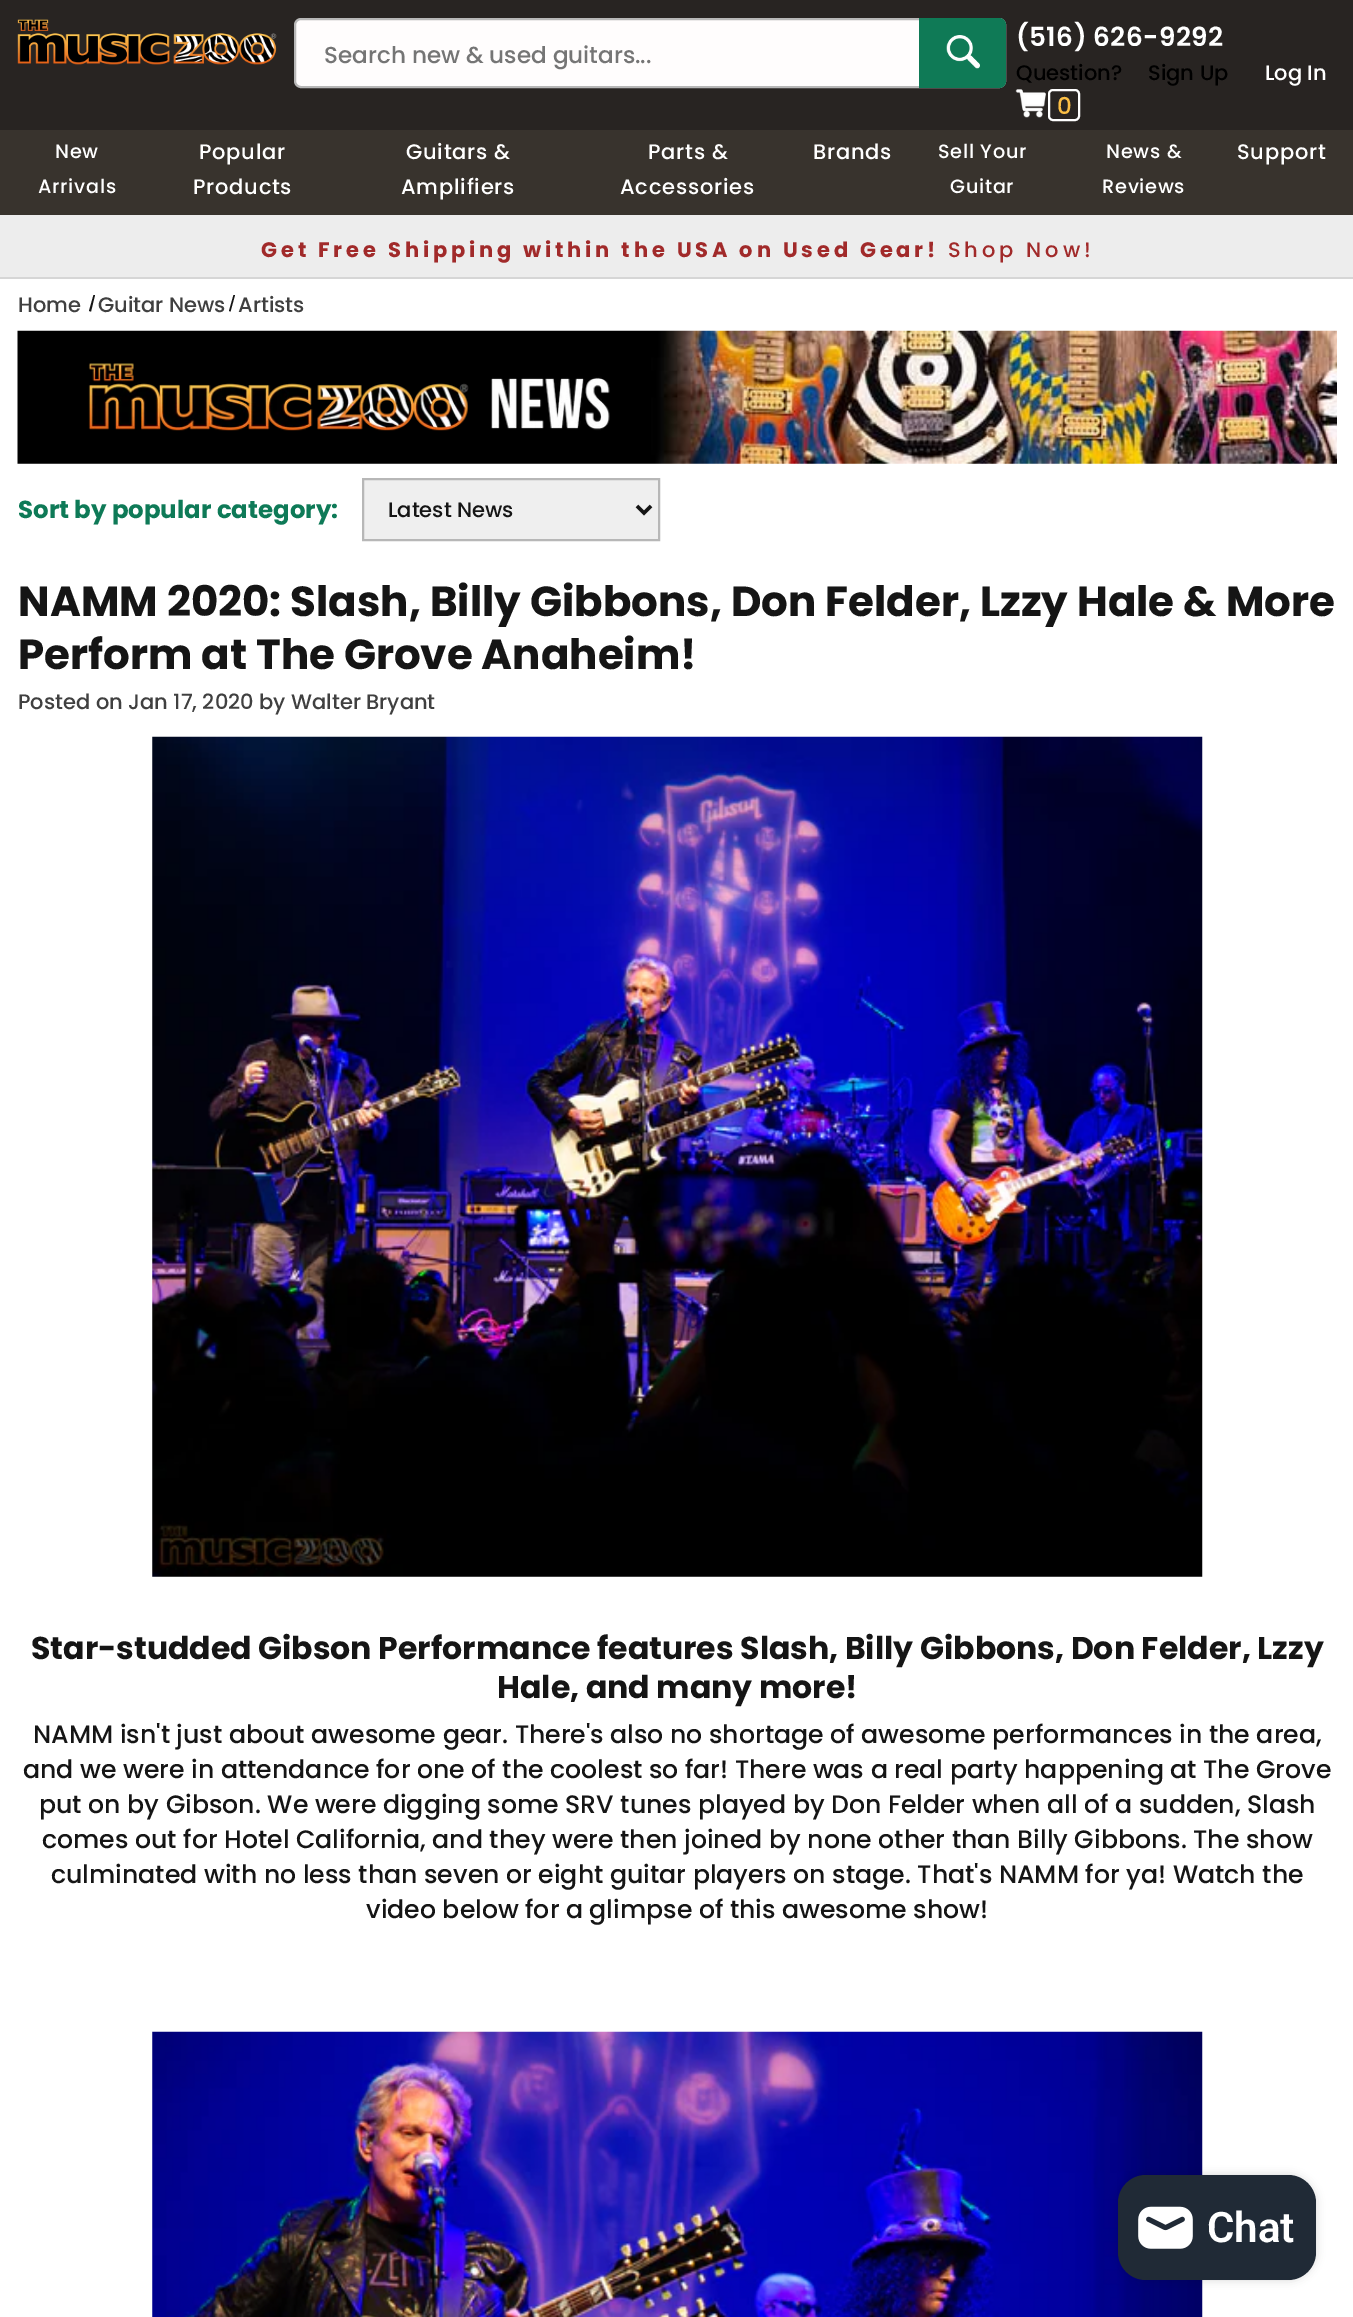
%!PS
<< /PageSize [1353 2317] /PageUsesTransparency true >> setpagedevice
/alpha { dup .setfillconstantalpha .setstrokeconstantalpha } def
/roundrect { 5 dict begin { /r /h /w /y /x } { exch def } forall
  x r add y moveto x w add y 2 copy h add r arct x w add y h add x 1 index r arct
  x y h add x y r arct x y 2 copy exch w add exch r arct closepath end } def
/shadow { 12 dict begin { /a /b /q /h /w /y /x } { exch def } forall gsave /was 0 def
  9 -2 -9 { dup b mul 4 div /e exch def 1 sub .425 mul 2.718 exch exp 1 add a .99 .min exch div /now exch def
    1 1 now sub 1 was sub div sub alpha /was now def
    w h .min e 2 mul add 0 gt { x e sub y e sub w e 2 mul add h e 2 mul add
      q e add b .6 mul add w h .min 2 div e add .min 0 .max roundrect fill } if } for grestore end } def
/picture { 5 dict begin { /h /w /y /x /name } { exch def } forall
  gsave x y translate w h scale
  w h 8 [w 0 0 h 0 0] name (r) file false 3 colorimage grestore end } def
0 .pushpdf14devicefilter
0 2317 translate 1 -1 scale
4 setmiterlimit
1 setgray
0 0 1353 2317 rectfill
0.157 0.141 0.133 setrgbcolor
0 0 1353 130 rectfill
0.839 setgray
0 277 1353 2 rectfill
(img1.rgb) 17 19 260 46 picture
1 0.992 0.992 setrgbcolor
295 19 710 68 6 roundrect gsave fill grestore
0.718 setgray
2 setlinewidth
stroke
/Poppins-Medium [23.1 0 0 -23.1 0 0] selectfont
0.459 setgray
324 63 moveto (Search new & used guitars...) show
0.059 0.478 0.337 setrgbcolor
newpath 919 18 moveto 999 18 lineto 1003 18 1006 21 1006 25 curveto 1006 81 lineto 1006 85 1003 88 999 88 curveto 919 88 lineto closepath fill
(img2.rgb) 946 35 34 34 picture
/Poppins-SemiBold [26.25 0 0 -26.25 0 0] selectfont
1 setgray
1016 46 moveto 0.4 0 (\(516\) 626-9292) ashow
/Poppins-Medium [21 0 0 -21 0 0] selectfont
0 setgray
1016 80 moveto (Question?) show
1148 80 moveto (Sign Up) show
1 setgray
1265 80 moveto (Log In) show
(img3.rgb) 1015 89 31 29 picture
1049 90 30 30 4 roundrect stroke
/Poppins-Medium [23.1 0 0 -23.1 0 0] selectfont
0.988 0.749 0.271 setrgbcolor
1057 114 moveto (0) show
0.22 0.2 0.176 setrgbcolor
0 130 1353 85 rectfill
/Poppins-Medium [19.25 0 0 -19.25 0 0] selectfont
1 setgray
55 158 moveto 0.75 0 (New) ashow
38 193 moveto 0.75 0 (Arrivals) ashow
/Poppins-Medium [21 0 0 -21 0 0] selectfont
199 159 moveto 0.75 0 (Popular) ashow
193 194 moveto 0.75 0 (Products) ashow
406 159 moveto 0.75 0 (Guitars &) ashow
401 194 moveto 0.75 0 (Amplifiers) ashow
648 159 moveto 0.75 0 (Parts &) ashow
620 194 moveto 0.75 0 (Accessories) ashow
813 159 moveto 0.75 0 (Brands) ashow
/Poppins-Medium [19.25 0 0 -19.25 0 0] selectfont
938 158 moveto 0.75 0 (Sell Your) ashow
950 193 moveto 0.75 0 (Guitar) ashow
1106 158 moveto 0.75 0 (News &) ashow
1102 193 moveto 0.75 0 (Reviews) ashow
/Poppins-Medium [21 0 0 -21 0 0] selectfont
1237 159 moveto 0.75 0 (Support) ashow
0.929 setgray
0 215 1353 62 rectfill
/Poppins-Bold [21 0 0 -21 0 0] selectfont
0.631 0.165 0.165 setrgbcolor
261 257 moveto 3.8 0 (Get Free Shipping within the USA on Used Gear!) ashow
/Poppins-Medium [21 0 0 -21 0 0] selectfont
948 257 moveto 3.8 0 (Shop Now!) ashow
0.251 setgray
18 312 moveto (Home) show
0.082 setgray
newpath 93.5 295 moveto 95 295 lineto 91 311.5 lineto 89 311 lineto closepath fill
0.251 setgray
98 312 moveto (Guitar News) show
0.082 setgray
newpath 233.5 295 moveto 235 295 lineto 230.5 311.5 lineto 229 311 lineto closepath fill
0.251 setgray
238 312 moveto (Artists) show
(img4.rgb) 17 330 1320 134 picture
(img5.rgb) 88 363 522 68 picture
/Poppins-Bold [24.5 0 0 -24.5 0 0] selectfont
0.055 0.478 0.341 setrgbcolor
18 518 moveto (Sort by popular category:) show
0.937 setgray
newpath 363 479 moveto 659 479 lineto 659 540 lineto 363 540 lineto closepath gsave fill grestore
0.718 setgray
stroke
0.082 setgray
3.5 setlinewidth
newpath 637 506 moveto 644 513 lineto 651 506 lineto stroke
/Poppins-Medium [21 0 0 -21 0 0] selectfont
388 517 moveto (Latest News) show
/Poppins-Bold [42 0 0 -42 0 0] selectfont
18 616 moveto (NAMM 2020: Slash, Billy Gibbons, Don Felder, Lzzy Hale & More) show
18 669 moveto (Perform at The Grove Anaheim!) show
/Poppins-Medium [21 0 0 -21 0 0] selectfont
0.251 setgray
18 709 moveto (Posted on Jan 17, 2020 by Walter Bryant) show
(img6.rgb) 152 736 1051 841 picture
/Poppins-Bold [31.5 0 0 -31.5 0 0] selectfont
0.082 setgray
31 1659 moveto (Star-studded Gibson Performance features Slash, Billy Gibbons, Don Felder, Lzzy) show
497 1698 moveto (Hale, and many more!) show
/Poppins-Medium [25.2 0 0 -25.2 0 0] selectfont
33 1743 moveto (NAMM isn't just about awesome gear. There's also no shortage of awesome performances in the area,) show
23 1778 moveto (and we were in attendance for one of the coolest so far! There was a real party happening at The Grove) show
39 1813 moveto (put on by Gibson. We were digging some SRV tunes played by Don Felder when all of a sudden, Slash) show
42 1848 moveto (comes out for Hotel California, and they were then joined by none other than Billy Gibbons. The show) show
51 1883 moveto (culminated with no less than seven or eight guitar players on stage. That's NAMM for ya! Watch the) show
366 1918 moveto (video below for a glimpse of this awesome show!) show
(img7.rgb) 152 2031 1051 286 picture
0 setgray
1118 2175 198 105 28 4.5 0.15 shadow
0.125 0.165 0.212 setrgbcolor
1118 2175 198 105 28 roundrect fill
(img8.rgb) 1138 2206 55 43 picture
/Roboto-SemiBold [42 0 0 -42 0 0] selectfont
1 setgray
1207 2242 moveto (Chat) show
.poppdf14devicefilter showpage
